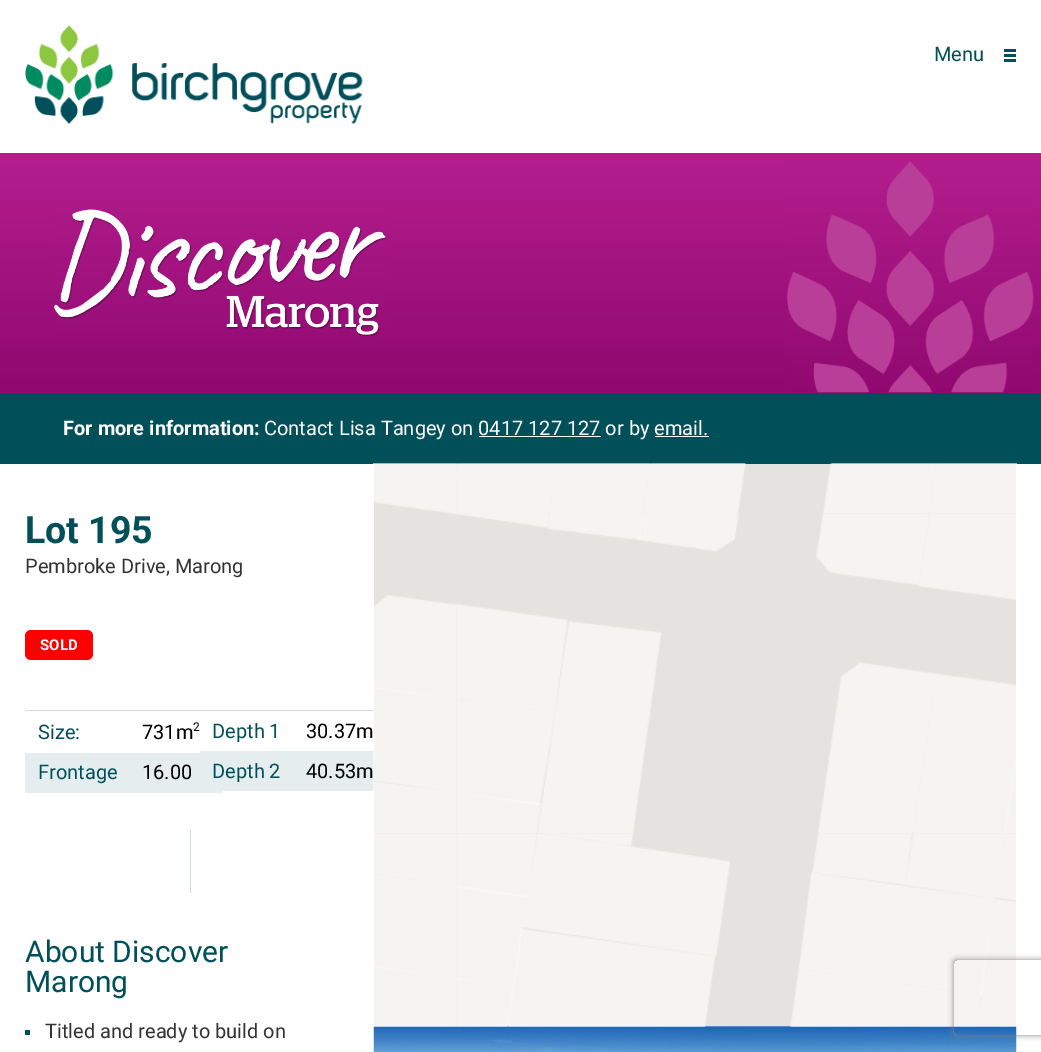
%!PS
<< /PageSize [1041 1052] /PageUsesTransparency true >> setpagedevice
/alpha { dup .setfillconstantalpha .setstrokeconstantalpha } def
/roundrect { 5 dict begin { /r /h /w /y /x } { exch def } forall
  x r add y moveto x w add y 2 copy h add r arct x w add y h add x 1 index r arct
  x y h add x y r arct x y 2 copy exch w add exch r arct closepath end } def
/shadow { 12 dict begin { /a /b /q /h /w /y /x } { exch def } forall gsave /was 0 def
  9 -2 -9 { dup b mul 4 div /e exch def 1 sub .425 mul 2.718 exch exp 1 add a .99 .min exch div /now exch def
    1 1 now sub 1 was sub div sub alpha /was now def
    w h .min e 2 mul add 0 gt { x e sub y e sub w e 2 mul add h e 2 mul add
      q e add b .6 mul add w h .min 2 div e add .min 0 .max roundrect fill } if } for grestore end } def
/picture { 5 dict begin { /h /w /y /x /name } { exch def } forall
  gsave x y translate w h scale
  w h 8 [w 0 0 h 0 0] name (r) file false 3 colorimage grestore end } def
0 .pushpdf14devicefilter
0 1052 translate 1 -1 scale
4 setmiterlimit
1 setgray
0 0 1041 1052 rectfill
(img1.rgb) 25 25 338 99 picture
/Roboto-Regular [20 0 0 -20 0 0] selectfont
0 0.31 0.349 setrgbcolor
934 61 moveto (Menu) show
0 0.31 0.353 setrgbcolor
1004 49 12 3 rectfill
1004 54 12 3 rectfill
1004 59 12 3 rectfill
gsave newpath 0 153 moveto 1041 153 lineto 1041 393 lineto 0 393 lineto closepath clip newpath
<< /ShadingType 2 /ColorSpace /DeviceRGB /Coords [521 152 521 393] /Extend [true true] /Function << /FunctionType 2 /Domain [0 1] /C0 [0.706 0.118 0.557] /C1 [0.565 0.031 0.439] /N 1 >> >> shfill grestore
(img2.rgb) 54 209 333 128 picture
(img3.rgb) 787 161 247 232 picture
0 0.31 0.349 setrgbcolor
0 393 1041 71 rectfill
/Roboto-Bold [20 0 0 -20 0 0] selectfont
1 setgray
63 435 moveto (For more information:) show
/Roboto-Regular [20 0 0 -20 0 0] selectfont
264 435 moveto (Contact Lisa Tangey on 0417 127 127 or by email.) show
479 436 122 1 rectfill
655 436 54 1 rectfill
/Roboto-Bold [37.5 0 0 -37.5 0 0] selectfont
0 0.31 0.349 setrgbcolor
25 543 moveto (Lot 195) show
/Roboto-Regular [20 0 0 -20 0 0] selectfont
0.2 setgray
25 573 moveto (Pembroke Drive, Marong) show
1 0 0 setrgbcolor
25 630 68 30 6 roundrect fill
/Roboto-Bold [15 0 0 -15 0 0] selectfont
1 setgray
40 650 moveto (SOLD) show
0.8 0.863 0.871 setrgbcolor
25 710 349 1 rectfill
/Roboto-Regular [20 0 0 -20 0 0] selectfont
0 0.31 0.349 setrgbcolor
38 739 moveto (Size:) show
0 setgray
142 739 moveto (731m) show
/Roboto-Regular [12 0 0 -12 0 0] selectfont
193 731 moveto (2) show
0.898 0.929 0.933 setrgbcolor
25 753 198 40 rectfill
/Roboto-Regular [20 0 0 -20 0 0] selectfont
0 0.31 0.349 setrgbcolor
38 779 moveto (Frontage) show
0 setgray
142 779 moveto (16.00) show
0 0.31 0.349 setrgbcolor
212 738 moveto (Depth 1) show
0 setgray
306 738 moveto (30.37m) show
0.898 0.929 0.933 setrgbcolor
200 751 174 40 rectfill
0 0.31 0.349 setrgbcolor
212 778 moveto (Depth 2) show
0 setgray
306 778 moveto (40.53m) show
0.8 0.863 0.871 setrgbcolor
190 830 1 63 rectfill
/Roboto-Regular [30 0 0 -30 0 0] selectfont
0 0.31 0.349 setrgbcolor
25 962 moveto (About Discover) show
25 992 moveto (Marong) show
25 1030 5 5 rectfill
/Roboto-Regular [20 0 0 -20 0 0] selectfont
0.2 setgray
45 1038 moveto (Titled and ready to build on) show
0.898 0.89 0.875 setrgbcolor
374 464 642 562 rectfill
(img8.rgb) 456 513 283 321 picture
(img4.rgb) 373 463 84 51 picture
(img5.rgb) 456 463 291 51 picture
(img6.rgb) 822 463 195 51 picture
(img7.rgb) 373 595 83 239 picture
(img9.rgb) 816 514 200 320 picture
(img13.rgb) 373 1026 644 26 picture
(img11.rgb) 456 834 274 193 picture
(img10.rgb) 373 834 84 193 picture
(img12.rgb) 790 834 227 193 picture
gsave
newpath 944 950 moveto 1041 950 lineto 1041 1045 lineto 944 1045 lineto closepath 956.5 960 moveto 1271.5 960 lineto 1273 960 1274 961 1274 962.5 curveto 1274 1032.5 lineto 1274 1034 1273 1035 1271.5 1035 curveto 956.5 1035 lineto 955 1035 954 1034 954 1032.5 curveto 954 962.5 lineto 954 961 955 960 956.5 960 curveto closepath eoclip newpath
0.502 setgray
954 960 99 75 2.5 3 1 shadow
grestore
.poppdf14devicefilter showpage
